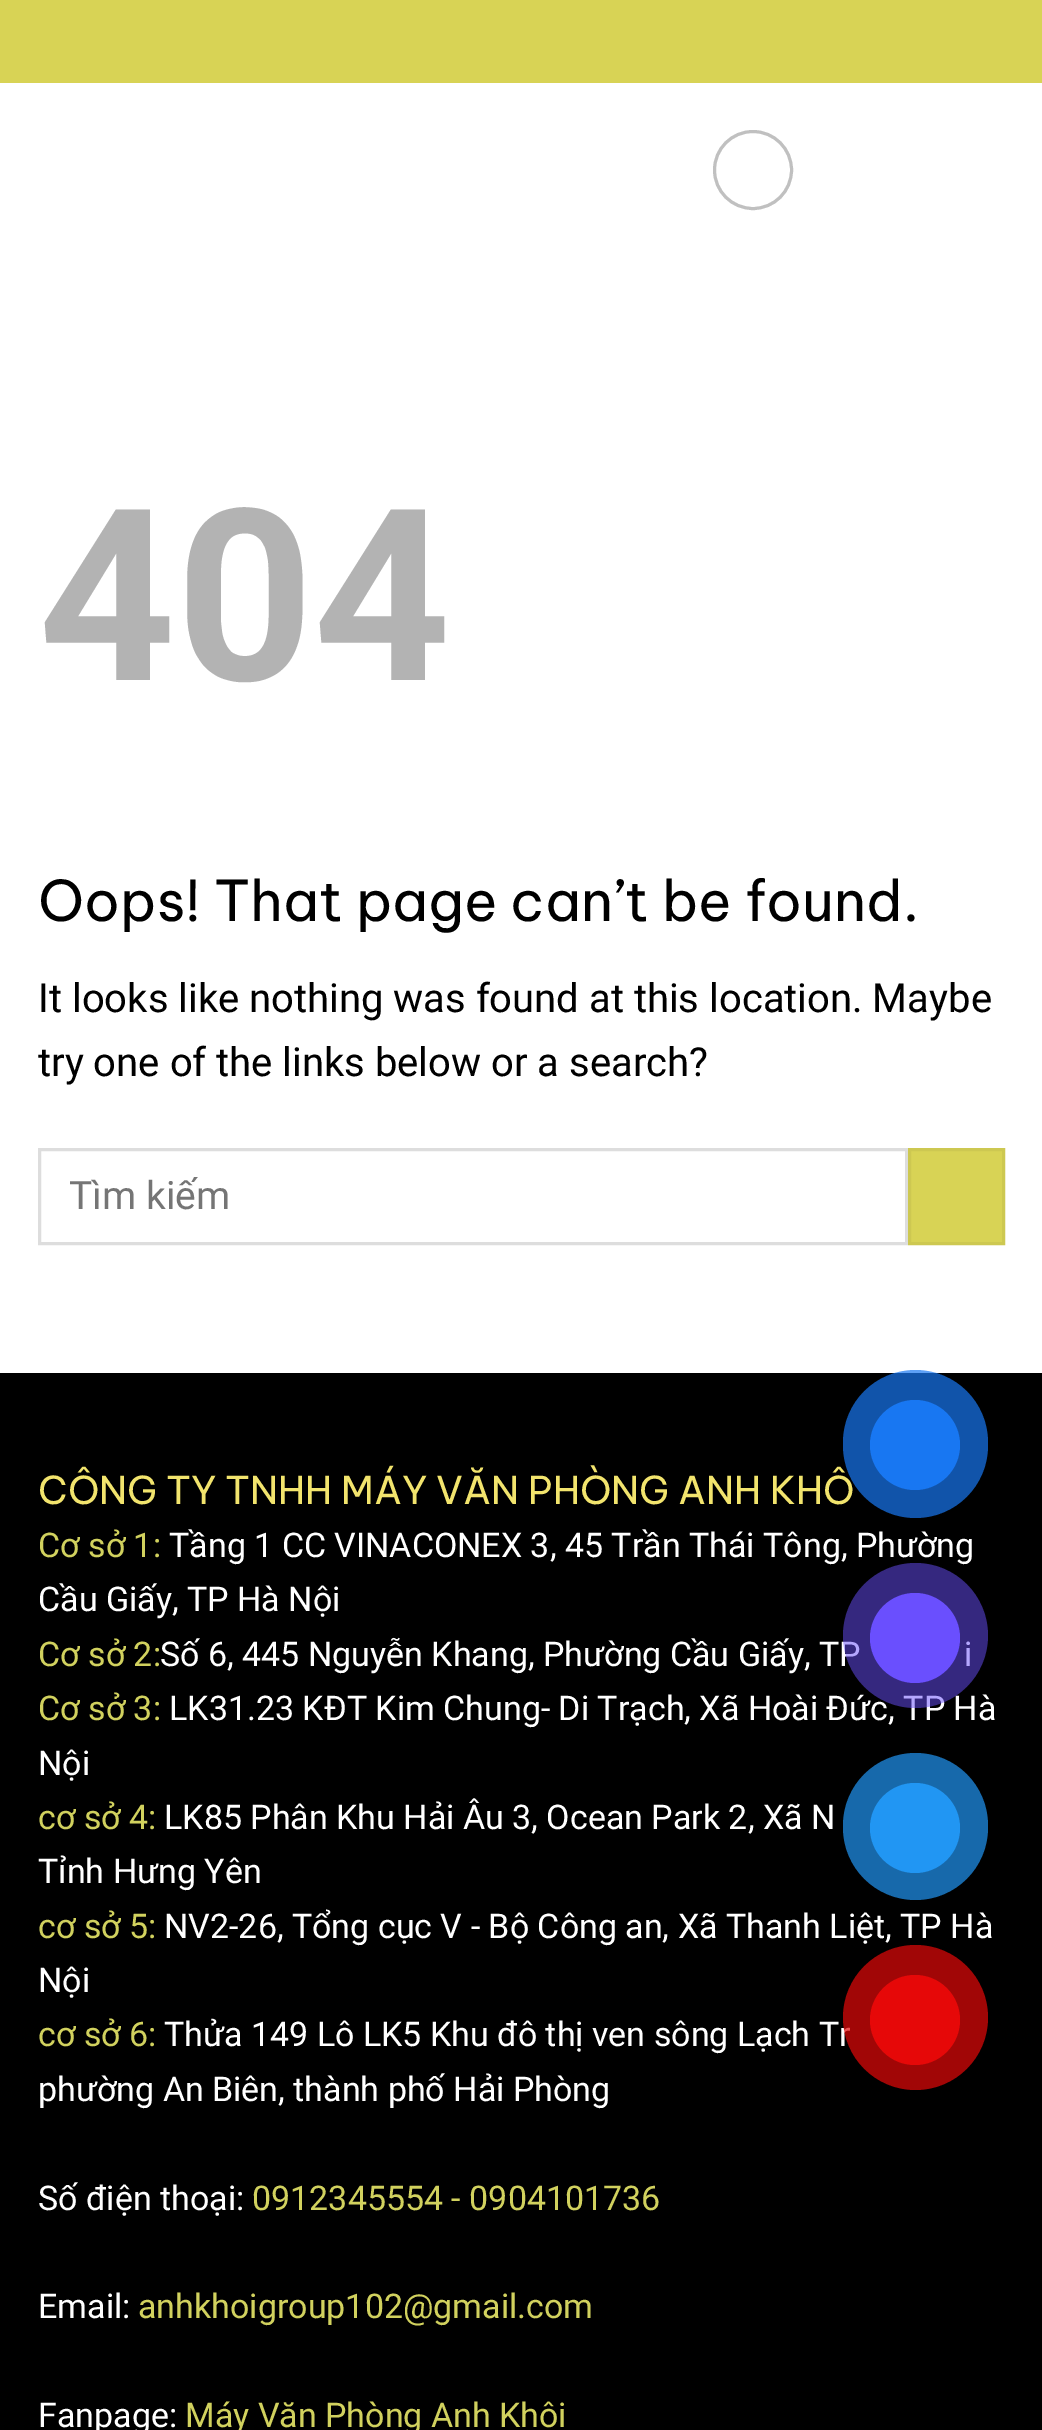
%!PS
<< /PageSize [1042 2430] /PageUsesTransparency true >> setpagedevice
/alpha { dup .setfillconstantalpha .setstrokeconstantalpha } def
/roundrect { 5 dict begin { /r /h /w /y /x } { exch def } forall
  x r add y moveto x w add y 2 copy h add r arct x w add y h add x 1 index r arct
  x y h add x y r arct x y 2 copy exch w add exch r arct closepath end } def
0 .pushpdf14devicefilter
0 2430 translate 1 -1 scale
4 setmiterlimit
1 setgray
0 0 1042 2430 rectfill
0.847 0.827 0.333 setrgbcolor
0 0 1042 83 rectfill
0.753 setgray
3 setlinewidth
newpath 753 170 38.5 0 360 arc closepath stroke
/Roboto-Bold [240 0 0 -240 0 0] selectfont
0.702 setgray
38 680 moveto (404) show
/BeVietnamPro-Regular [56 0 0 -56 0 0] selectfont
0 setgray
38 921 moveto (Oops! That page can’t be found.) show
/Roboto-Regular [40 0 0 -40 0 0] selectfont
38 1012 moveto (It looks like nothing was found at this location. Maybe) show
38 1076 moveto (try one of the links below or a search?) show
0.867 setgray
39.5 1149.5 867 94 rectstroke
/Roboto-Regular [39 0 0 -39 0 0] selectfont
0.459 setgray
69 1209 moveto (Tìm kiếm) show
0.847 0.827 0.333 setrgbcolor
newpath 909.5 1149.5 moveto 1003.5 1149.5 lineto 1003.5 1243.5 lineto 909.5 1243.5 lineto closepath gsave fill grestore
0.804 0.784 0.318 setrgbcolor
stroke
0 setgray
0 1373 1042 1057 rectfill
/BeVietnamPro-Regular [38.25 0 0 -38.25 0 0] selectfont
0.949 0.894 0.427 setrgbcolor
38 1504 moveto (CÔNG TY TNHH MÁY VĂN PHÒNG ANH KHÔ) show
/Roboto-Regular [34 0 0 -34 0 0] selectfont
0.82 0.82 0.369 setrgbcolor
38 1557 moveto (Cơ sở 1:) show
1 setgray
169 1557 moveto (Tầng 1 CC VINACONEX 3, 45 Trần Thái Tông, Phường) show
38 1611 moveto (Cầu Giấy, TP Hà Nội) show
0.82 0.82 0.369 setrgbcolor
38 1666 moveto (Cơ sở 2:) show
1 setgray
160 1666 moveto (Số 6, 445 Nguyễn Khang, Phường Cầu Giấy, TP) show
964 1666 moveto (i) show
0.82 0.82 0.369 setrgbcolor
38 1720 moveto (Cơ sở 3:) show
1 setgray
169 1720 moveto (LK31.23 KĐT Kim Chung- Di Trạch, Xã Hoài Đức, TP Hà) show
38 1775 moveto (Nội) show
0.82 0.82 0.369 setrgbcolor
38 1829 moveto (cơ sở 4:) show
1 setgray
164 1829 moveto (LK85 Phân Khu Hải Âu 3, Ocean Park 2, Xã N) show
38 1883 moveto (Tỉnh Hưng Yên) show
0.82 0.82 0.369 setrgbcolor
38 1938 moveto (cơ sở 5:) show
1 setgray
164 1938 moveto (NV2-26, Tổng cục V - Bộ Công an, Xã Thanh Liệt, TP Hà) show
38 1992 moveto (Nội) show
0.82 0.82 0.369 setrgbcolor
38 2046 moveto (cơ sở 6:) show
1 setgray
164 2046 moveto (Thửa 149 Lô LK5 Khu đô thị ven sông Lạch Tr) show
38 2101 moveto (phường An Biên, thành phố Hải Phòng) show
38 2210 moveto (Số điện thoại:) show
0.82 0.82 0.369 setrgbcolor
252 2210 moveto (0912345554 - 0904101736) show
1 setgray
38 2318 moveto (Email:) show
0.82 0.82 0.369 setrgbcolor
138 2318 moveto (anhkhoigroup102@gmail.com) show
1 setgray
38 2427 moveto (Fanpage:) show
0.82 0.82 0.369 setrgbcolor
185 2427 moveto (Máy Văn Phòng Anh Khôi) show
0.7 alpha
0.094 0.467 0.949 setrgbcolor
843 1370 145 148 72.5 roundrect fill
1 alpha
newpath 915 1445 45 0 360 arc closepath fill
0.5 alpha
0.416 0.31 0.996 setrgbcolor
newpath 915.5 1635.5 72.5 0 360 arc closepath fill
1 alpha
newpath 915 1638 45 0 360 arc closepath fill
0.7 alpha
0.129 0.588 0.953 setrgbcolor
843 1753 145 147 72.5 roundrect fill
1 alpha
newpath 915 1828 45 0 360 arc closepath fill
0.7 alpha
0.902 0.031 0.031 setrgbcolor
newpath 915.5 2017.5 72.5 0 360 arc closepath fill
1 alpha
newpath 915 2020 45 0 360 arc closepath fill
.poppdf14devicefilter showpage
